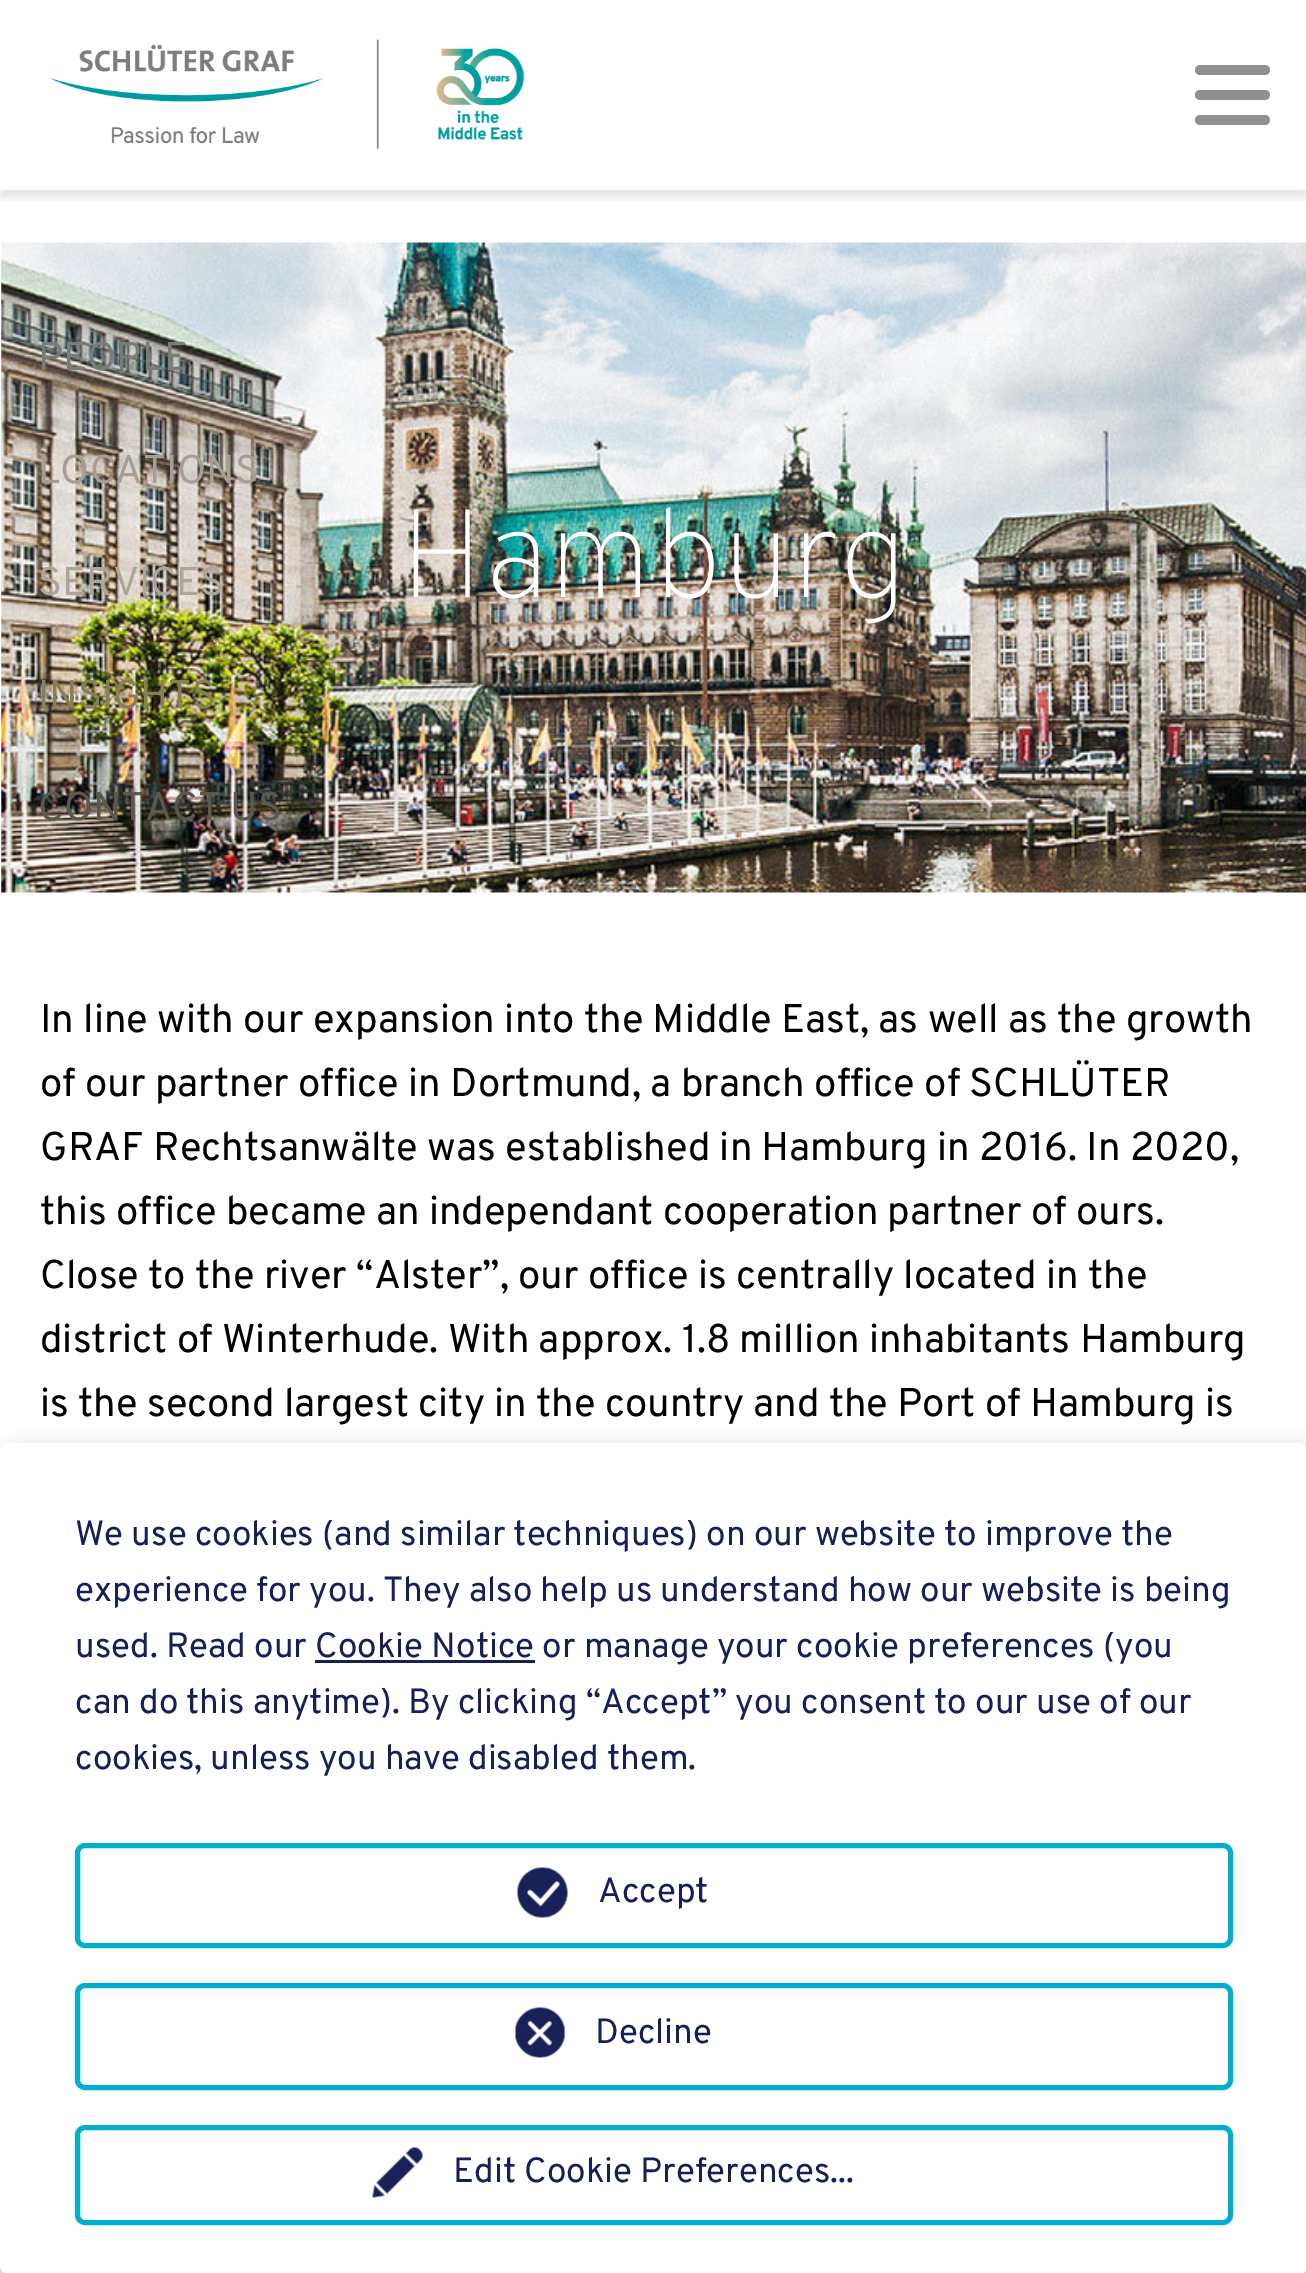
%!PS
<< /PageSize [1306 2273] /PageUsesTransparency true >> setpagedevice
/alpha { dup .setfillconstantalpha .setstrokeconstantalpha } def
/roundrect { 5 dict begin { /r /h /w /y /x } { exch def } forall
  x r add y moveto x w add y 2 copy h add r arct x w add y h add x 1 index r arct
  x y h add x y r arct x y 2 copy exch w add exch r arct closepath end } def
/shadow { 12 dict begin { /a /b /q /h /w /y /x } { exch def } forall gsave /was 0 def
  9 -2 -9 { dup b mul 4 div /e exch def 1 sub .425 mul 2.718 exch exp 1 add a .99 .min exch div /now exch def
    1 1 now sub 1 was sub div sub alpha /was now def
    w h .min e 2 mul add 0 gt { x e sub y e sub w e 2 mul add h e 2 mul add
      q e add b .6 mul add w h .min 2 div e add .min 0 .max roundrect fill } if } for grestore end } def
/picture { 5 dict begin { /h /w /y /x /name } { exch def } forall
  gsave x y translate w h scale
  w h 8 [w 0 0 h 0 0] name (r) file false 3 colorimage grestore end } def
0 .pushpdf14devicefilter
0 2273 translate 1 -1 scale
4 setmiterlimit
1 setgray
0 0 1306 2273 rectfill
gsave
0 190 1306 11 rectclip
0 setgray
0 8 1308 190 0 4 0.1 shadow
grestore
(img1.rgb) 50 39 474 110 picture
0.565 0.565 0.576 setrgbcolor
1195 65 75 10 5 roundrect fill
1195 90 75 10 5 roundrect fill
1195 115 75 10 5 roundrect fill
(img2.rgb) 1 242 1305 651 picture
/Overpass-Regular [40 0 0 -40 0 0] selectfont
0.471 0.49 0.478 setrgbcolor
38 370 moveto (PEOPLE) show
0.651 0.62 0.584 setrgbcolor
38 483 moveto (LOCATIONS) show
0.678 0.647 0.6 setrgbcolor
38 595 moveto (SERVICES) show
0.525 0.502 0.337 setrgbcolor
38 708 moveto (INSIGHTS) show
0.361 0.345 0.31 setrgbcolor
38 820 moveto (CONTACT US) show
/Overpass-Thin [125 0 0 -125 0 0] selectfont
1 setgray
400 597 moveto (Hamburg) show
/Overpass-Regular [40 0 0 -40 0 0] selectfont
0 setgray
40 1032 moveto (In line with our expansion into the Middle East, as well as the growth) show
40 1096 moveto (of our partner office in Dortmund, a branch office of SCHLÜTER) show
40 1160 moveto (GRAF Rechtsanwälte was established in Hamburg in 2016. In 2020,) show
40 1224 moveto (this office became an independant cooperation partner of ours.) show
40 1288 moveto (Close to the river “Alster”, our office is centrally located in the) show
40 1352 moveto (district of Winterhude. With approx. 1.8 million inhabitants Hamburg) show
40 1416 moveto (is the second largest city in the country and the Port of Hamburg is) show
13 1455 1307 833 10 12.5 0.19 shadow
0 1453 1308 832 10 7.5 0.2 shadow
1 setgray
0 1443 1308 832 10 roundrect fill
/Overpass-Regular [35 0 0 -35 0 0] selectfont
0.086 0.122 0.341 setrgbcolor
75 1545 moveto (We use cookies \(and similar techniques\) on our website to improve the) show
75 1601 moveto (experience for you. They also help us understand how our website is being) show
75 1657 moveto (used. Read our Cookie Notice or manage your cookie preferences \(you) show
315 1660 220 3 rectfill
75 1713 moveto (can do this anytime\). By clicking “Accept” you consent to our use of our) show
75 1769 moveto (cookies, unless you have disabled them.) show
0 0.686 0.796 setrgbcolor
5 setlinewidth
77.5 1845.5 1153 100 7.5 roundrect stroke
(img3.rgb) 517 1867 51 51 picture
0.086 0.122 0.341 setrgbcolor
598 1902 moveto (Accept) show
0 0.686 0.796 setrgbcolor
77.5 1985.5 1153 102 7.5 roundrect stroke
(img4.rgb) 515 2007 51 51 picture
0.086 0.122 0.341 setrgbcolor
595 2043 moveto (Decline) show
0 0.686 0.796 setrgbcolor
77.5 2127.5 1153 95 7.5 roundrect stroke
(img5.rgb) 372 2147 51 51 picture
0.086 0.122 0.341 setrgbcolor
453 2182 moveto (Edit Cookie Preferences...) show
.poppdf14devicefilter showpage
